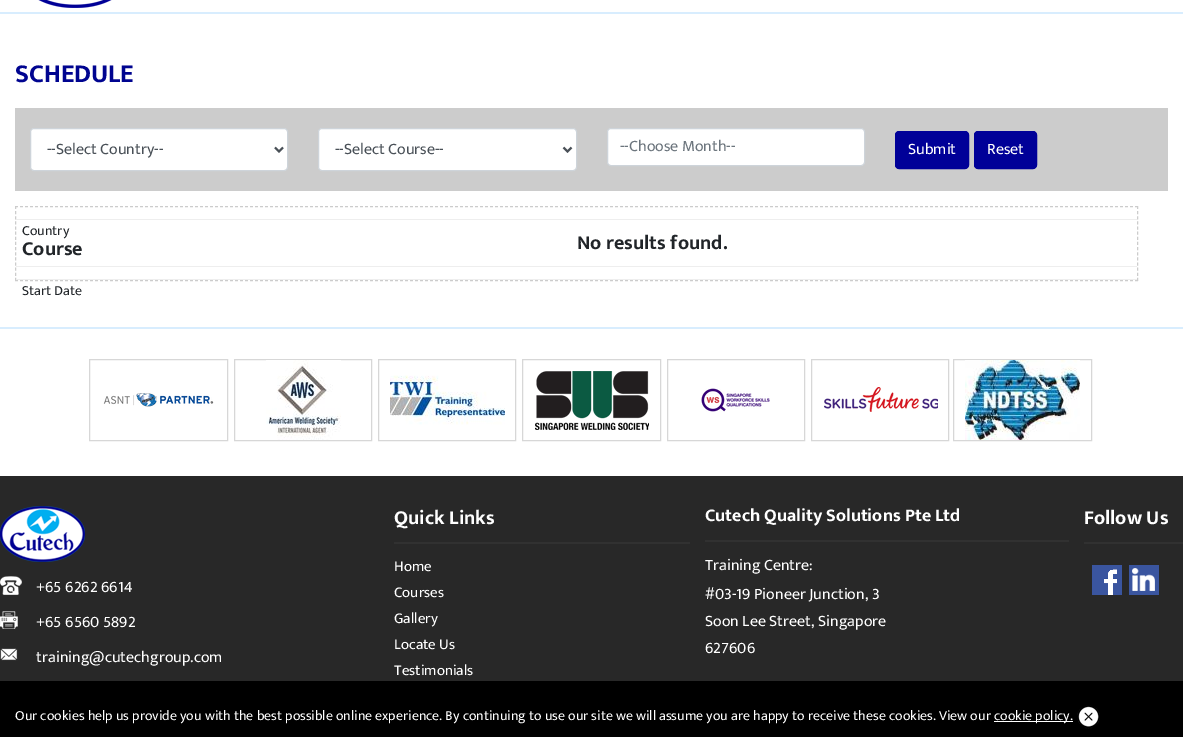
%!PS
<< /PageSize [1183 737] >> setpagedevice
/roundrect { 5 dict begin { /r /h /w /y /x } { exch def } forall
  x r add y moveto x w add y 2 copy h add r arct x w add y h add x 1 index r arct
  x y h add x y r arct x y 2 copy exch w add exch r arct closepath end } def
/picture { 5 dict begin { /h /w /y /x /name } { exch def } forall
  gsave x y translate w h scale
  w h 8 [w 0 0 h 0 0] name (r) file false 3 colorimage grestore end } def
0 737 translate 1 -1 scale
4 setmiterlimit
1 setgray
0 0 1183 737 rectfill
(img1.rgb) 38 0 74 8 picture
0.847 0.929 0.996 setrgbcolor
0 12 1183 2 rectfill
/Mukta-Bold [26 0 0 -26 0 0] selectfont
0 0.016 0.565 setrgbcolor
15 82 moveto (SCHEDULE) show
0.8 setgray
15 108 1153 83 rectfill
1 setgray
30.5 128.5 257 42 3.5 roundrect gsave fill grestore
0.808 0.831 0.855 setrgbcolor
stroke
0.286 0.314 0.341 setrgbcolor
2 setlinewidth
newpath 275 147.5 moveto 279 151.5 lineto 283 147.5 lineto stroke
/Mukta-Regular [16 0 0 -16 0 0] selectfont
47 154 moveto (--Select Country--) show
1 setgray
318.5 128.5 258 42 3.5 roundrect gsave fill grestore
0.808 0.831 0.855 setrgbcolor
1 setlinewidth
stroke
0.286 0.314 0.341 setrgbcolor
2 setlinewidth
newpath 563.5 147.5 moveto 567.5 151.5 lineto 571.5 147.5 lineto stroke
335 154 moveto (--Select Course--) show
1 setgray
607.5 128.5 257 37 3.5 roundrect gsave fill grestore
0.808 0.831 0.855 setrgbcolor
1 setlinewidth
stroke
0.424 0.459 0.49 setrgbcolor
620 151 moveto (--Choose Month--) show
0 0 0.596 setrgbcolor
895.5 131.5 73 37 3.5 roundrect gsave fill grestore
stroke
1 setgray
908 154 moveto (Submit) show
0 0 0.596 setrgbcolor
974.5 131.5 62 37 3.5 roundrect gsave fill grestore
stroke
1 setgray
987 154 moveto (Reset) show
0.8 setgray
[3 2] 0 setdash
newpath 15 206.5 moveto 1138 206.5 lineto stroke
[3 2.14] 0 setdash
newpath 1137.5 206 moveto 1137.5 281 lineto stroke
[3 2] 0 setdash
newpath 15 280.5 moveto 1138 280.5 lineto stroke
[3 2.14] 0 setdash
newpath 15.5 206 moveto 15.5 281 lineto stroke
0.933 setgray
16 219 1121 1 rectfill
/Mukta-Regular [14 0 0 -14 0 0] selectfont
0.129 0.145 0.161 setrgbcolor
22 235 moveto (Country) show
0.933 setgray
16 266 1121 1 rectfill
/Mukta-Bold [20 0 0 -20 0 0] selectfont
0.129 0.145 0.161 setrgbcolor
22 255 moveto (Course) show
577 249 moveto (No results found.) show
0.933 setgray
16 279 1121 1 rectfill
/Mukta-Regular [14 0 0 -14 0 0] selectfont
0.129 0.145 0.161 setrgbcolor
22 295 moveto (Start Date) show
0.847 0.929 0.996 setrgbcolor
0 327 1183 2 rectfill
0.843 setgray
[] 0 setdash
89.5 359.5 138 81 rectstroke
(img2.rgb) 103 393 111 14 picture
234.5 359.5 137 81 rectstroke
(img3.rgb) 266 360 75 80 picture
378.5 359.5 137 81 rectstroke
(img4.rgb) 390 375 115 50 picture
522.5 359.5 138 81 rectstroke
(img5.rgb) 535 371 114 59 picture
667.5 359.5 137 81 rectstroke
(img6.rgb) 701 388 69 24 picture
811.5 359.5 137 81 rectstroke
(img7.rgb) 824 387 114 25 picture
953.5 359.5 138 81 rectstroke
(img8.rgb) 965 360 115 80 picture
0.157 setgray
0 476 1183 205 rectfill
0.192 setgray
394 542 296 2 rectfill
/Mukta-Bold [20 0 0 -20 0 0] selectfont
1 setgray
394 524 moveto (Quick Links) show
/Mukta-Regular [15 0 0 -15 0 0] selectfont
394 571 moveto (Home) show
394 597 moveto (Courses) show
394 623 moveto (Gallery) show
394 649 moveto (Locate Us) show
394 675 moveto (Testimonials) show
0.192 setgray
705 540 364 2 rectfill
/Mukta-Bold [18 0 0 -18 0 0] selectfont
1 setgray
705 521 moveto (Cutech Quality Solutions Pte Ltd) show
/Mukta-Regular [16 0 0 -16 0 0] selectfont
705 570 moveto (Training Centre:) show
705 599 moveto (#03-19 Pioneer Junction, 3) show
705 626 moveto (Soon Lee Street, Singapore) show
705 653 moveto (627606) show
0.192 setgray
1084 542 99 2 rectfill
/Mukta-Bold [20 0 0 -20 0 0] selectfont
1 setgray
1084 524 moveto (Follow Us) show
(img9.rgb) 1092 565 30 30 picture
(img10.rgb) 1129 565 30 30 picture
(img11.rgb) 0 506 85 56 picture
(img12.rgb) 0 576 22 19 picture
/Mukta-Regular [16 0 0 -16 0 0] selectfont
36 592 moveto (+65 6262 6614) show
(img13.rgb) 0 611 18 18 picture
36 627 moveto (+65 6560 5892) show
(img14.rgb) 0 648 18 13 picture
36 662 moveto (training@cutechgroup.com) show
0 setgray
0 681 1183 56 rectfill
/Mukta-Regular [14 0 0 -14 0 0] selectfont
1 setgray
15 720 moveto (Our cookies help us provide you with the best possible online experience. By continuing to use our site we will assume you are happy to receive these cookies. View our) show
994 721 79 1 rectfill
994 720 moveto (cookie policy.) show
(img15.rgb) 1077 705 23 24 picture
showpage
